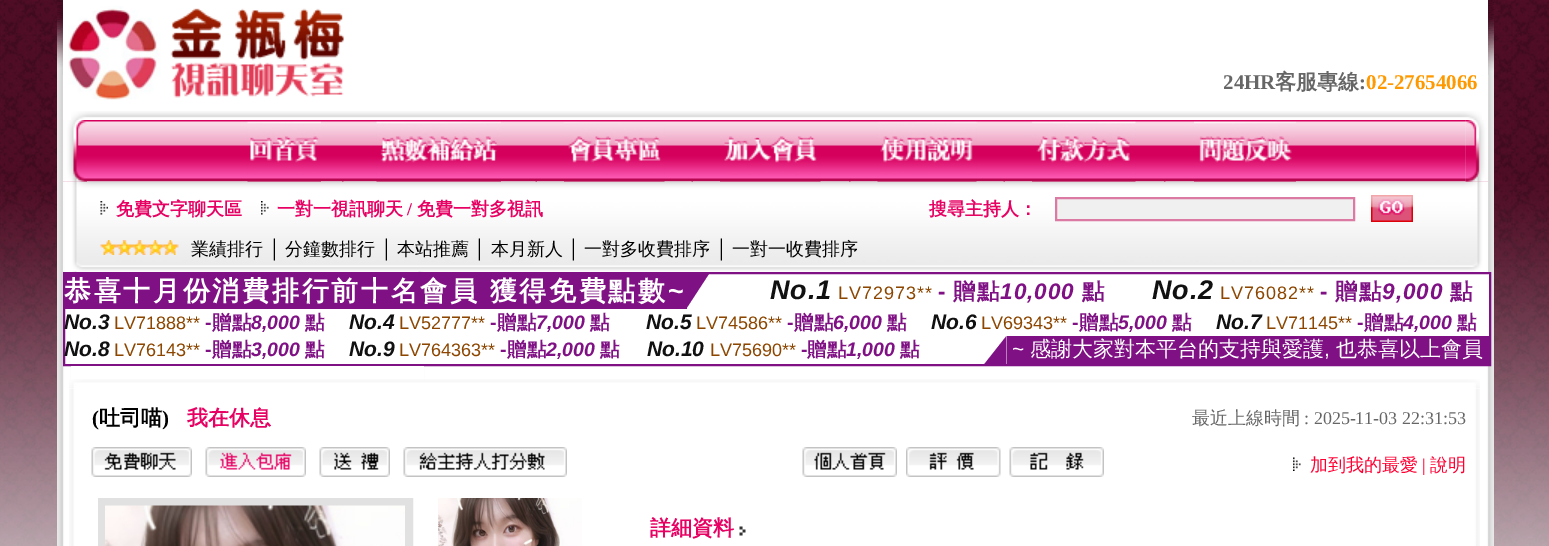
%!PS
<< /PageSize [1549 546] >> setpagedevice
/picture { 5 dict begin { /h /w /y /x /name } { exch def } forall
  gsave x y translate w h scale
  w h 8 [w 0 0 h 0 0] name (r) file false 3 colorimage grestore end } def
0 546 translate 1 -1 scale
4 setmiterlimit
1 setgray
0 0 1549 546 rectfill
(img1.rgb) 0 0 1549 546 picture
(img2.rgb) 57 75 1437 471 picture
(img3.rgb) 57 0 6 75 picture
(img4.rgb) 1488 0 6 75 picture
63 0 1425 120 rectfill
(img5.rgb) 68 6 276 94 picture
/LiberationSerif-Bold [21 0 0 -21 0 0] selectfont
0.4 setgray
1223 89 moveto (24HR) show
/WenQuanYiZenHei-Bold [21 0 0 -21 0 0] selectfont
1275 89 moveto (客服專線) show
/LiberationSerif-Bold [21 0 0 -21 0 0] selectfont
1359 89 moveto (:) show
1 0.6 0 setrgbcolor
1366 89 moveto (02-27654066) show
(img6.rgb) 71 111 1411 9 picture
(img7.rgb) 63 181 24 1 picture
(img9.rgb) 87 120 1379 62 picture
(img19.rgb) 1465 120 23 62 picture
(img21.rgb) 63 181 1425 91 picture
(img8.rgb) 63 120 24 62 picture
(img10.rgb) 247 121 74 61 picture
(img11.rgb) 342 181 2 1 picture
(img12.rgb) 376 121 125 61 picture
(img13.rgb) 535 181 2 1 picture
(img14.rgb) 564 122 101 60 picture
(img13.rgb) 691 181 2 1 picture
(img15.rgb) 720 136 101 46 picture
(img11.rgb) 849 181 2 1 picture
(img16.rgb) 877 121 100 61 picture
(img13.rgb) 1003 181 2 1 picture
(img17.rgb) 1032 121 104 61 picture
(img11.rgb) 1164 181 2 1 picture
(img18.rgb) 1194 121 102 61 picture
(img20.rgb) 1465 120 23 62 picture
(img22.rgb) 100 201 8 14 picture
/WenQuanYiZenHei-Bold [18 0 0 -18 0 0] selectfont
0.902 0.004 0.388 setrgbcolor
116 215 moveto (免費文字聊天區) show
(img23.rgb) 261 201 8 14 picture
277 215 moveto (一對一視訊聊天) show
/LiberationSerif-Bold [18 0 0 -18 0 0] selectfont
407 215 moveto (/) show
/WenQuanYiZenHei-Bold [18 0 0 -18 0 0] selectfont
417 215 moveto (免費一對多視訊) show
929 215 moveto (搜尋主持人：) show
0.941 setgray
newpath 1056 198 moveto 1354 198 lineto 1354 220 lineto 1056 220 lineto closepath gsave fill grestore
0.859 0.482 0.643 setrgbcolor
2 setlinewidth
stroke
(img24.rgb) 1371 195 42 27 picture
(img25.rgb) 100 240 79 15 picture
/WenQuanYiZenHei-Medium [18 0 0 -18 0 0] selectfont
0 setgray
191 255 moveto (業績排行) show
/LiberationSerif-Regular [18 0 0 -18 0 0] selectfont
268 255 moveto (│) show
/WenQuanYiZenHei-Medium [18 0 0 -18 0 0] selectfont
285 255 moveto (分鐘數排行) show
/LiberationSerif-Regular [18 0 0 -18 0 0] selectfont
380 255 moveto (│) show
/WenQuanYiZenHei-Medium [18 0 0 -18 0 0] selectfont
397 255 moveto (本站推薦) show
/LiberationSerif-Regular [18 0 0 -18 0 0] selectfont
473 255 moveto (│) show
/WenQuanYiZenHei-Medium [18 0 0 -18 0 0] selectfont
491 255 moveto (本月新人) show
/LiberationSerif-Regular [18 0 0 -18 0 0] selectfont
567 255 moveto (│) show
/WenQuanYiZenHei-Medium [18 0 0 -18 0 0] selectfont
584 255 moveto (一對多收費排序) show
/LiberationSerif-Regular [18 0 0 -18 0 0] selectfont
715 255 moveto (│) show
/WenQuanYiZenHei-Medium [18 0 0 -18 0 0] selectfont
732 255 moveto (一對一收費排序) show
1 setgray
71 274 1418 90 rectfill
0.498 0.067 0.518 setrgbcolor
64 273 1426 92 rectstroke
65 274 622 35 rectfill
/WenQuanYiZenHei-Bold [27 0 0 -27 0 0] selectfont
1 setgray
64 300 moveto -1 0 32 2.7 0 (恭喜十月份消費排行前十名會員 獲得免費點數) awidthshow
/LiberationSans-Bold [27 0 0 -27 0 0] selectfont
668 300 moveto 2.7 0 (~) ashow
0.494 0.067 0.518 setrgbcolor
newpath 687 273 moveto 709.5 273 lineto 687 307.5 lineto closepath fill
/LiberationSans-BoldItalic [27 0 0 -27 0 0] selectfont
0.067 setgray
770 299 moveto 1 0 (No.1) ashow
/LiberationSans-Regular [18 0 0 -18 0 0] selectfont
0.549 0.275 0 setrgbcolor
838 299 moveto 1 0 (LV72973**) ashow
/LiberationSans-Bold [22.5 0 0 -22.5 0 0] selectfont
0.498 0.067 0.518 setrgbcolor
938 299 moveto 1 0 (-) ashow
/WenQuanYiZenHei-Bold [22.5 0 0 -22.5 0 0] selectfont
953 299 moveto 1 0 (贈點) ashow
/LiberationSans-BoldItalic [22.5 0 0 -22.5 0 0] selectfont
1000 299 moveto 1 0 (10,000) ashow
/WenQuanYiZenHei-Bold [22.5 0 0 -22.5 0 0] selectfont
1082 299 moveto 1 0 (點) ashow
/LiberationSans-BoldItalic [27 0 0 -27 0 0] selectfont
0.067 setgray
1152 299 moveto 1 0 (No.2) ashow
/LiberationSans-Regular [18 0 0 -18 0 0] selectfont
0.549 0.275 0 setrgbcolor
1220 299 moveto 1 0 (LV76082**) ashow
/LiberationSans-Bold [22.5 0 0 -22.5 0 0] selectfont
0.498 0.067 0.518 setrgbcolor
1320 299 moveto 1 0 (-) ashow
/WenQuanYiZenHei-Bold [22.5 0 0 -22.5 0 0] selectfont
1335 299 moveto 1 0 (贈點) ashow
/LiberationSans-BoldItalic [22.5 0 0 -22.5 0 0] selectfont
1382 299 moveto 1 0 (9,000) ashow
/WenQuanYiZenHei-Bold [22.5 0 0 -22.5 0 0] selectfont
1450 299 moveto 1 0 (點) ashow
/LiberationSans-BoldItalic [21 0 0 -21 0 0] selectfont
0.067 setgray
64 329 moveto (No.3) show
/LiberationSans-Regular [18 0 0 -18 0 0] selectfont
0.549 0.275 0 setrgbcolor
114 329 moveto (LV71888**) show
/LiberationSans-Bold [19.5 0 0 -19.5 0 0] selectfont
0.498 0.067 0.518 setrgbcolor
205 329 moveto (-) show
/WenQuanYiZenHei-Bold [19.5 0 0 -19.5 0 0] selectfont
212 329 moveto (贈點) show
/LiberationSans-BoldItalic [19.5 0 0 -19.5 0 0] selectfont
251 329 moveto (8,000) show
/WenQuanYiZenHei-Bold [19.5 0 0 -19.5 0 0] selectfont
305 329 moveto (點) show
/LiberationSans-BoldItalic [21 0 0 -21 0 0] selectfont
0.067 setgray
349 329 moveto (No.4) show
/LiberationSans-Regular [18 0 0 -18 0 0] selectfont
0.549 0.275 0 setrgbcolor
399 329 moveto (LV52777**) show
/LiberationSans-Bold [19.5 0 0 -19.5 0 0] selectfont
0.498 0.067 0.518 setrgbcolor
490 329 moveto (-) show
/WenQuanYiZenHei-Bold [19.5 0 0 -19.5 0 0] selectfont
497 329 moveto (贈點) show
/LiberationSans-BoldItalic [19.5 0 0 -19.5 0 0] selectfont
536 329 moveto (7,000) show
/WenQuanYiZenHei-Bold [19.5 0 0 -19.5 0 0] selectfont
590 329 moveto (點) show
/LiberationSans-BoldItalic [21 0 0 -21 0 0] selectfont
0.067 setgray
646 329 moveto (No.5) show
/LiberationSans-Regular [18 0 0 -18 0 0] selectfont
0.549 0.275 0 setrgbcolor
696 329 moveto (LV74586**) show
/LiberationSans-Bold [19.5 0 0 -19.5 0 0] selectfont
0.498 0.067 0.518 setrgbcolor
787 329 moveto (-) show
/WenQuanYiZenHei-Bold [19.5 0 0 -19.5 0 0] selectfont
794 329 moveto (贈點) show
/LiberationSans-BoldItalic [19.5 0 0 -19.5 0 0] selectfont
833 329 moveto (6,000) show
/WenQuanYiZenHei-Bold [19.5 0 0 -19.5 0 0] selectfont
887 329 moveto (點) show
/LiberationSans-BoldItalic [21 0 0 -21 0 0] selectfont
0.067 setgray
931 329 moveto (No.6) show
/LiberationSans-Regular [18 0 0 -18 0 0] selectfont
0.549 0.275 0 setrgbcolor
981 329 moveto (LV69343**) show
/LiberationSans-Bold [19.5 0 0 -19.5 0 0] selectfont
0.498 0.067 0.518 setrgbcolor
1072 329 moveto (-) show
/WenQuanYiZenHei-Bold [19.5 0 0 -19.5 0 0] selectfont
1079 329 moveto (贈點) show
/LiberationSans-BoldItalic [19.5 0 0 -19.5 0 0] selectfont
1118 329 moveto (5,000) show
/WenQuanYiZenHei-Bold [19.5 0 0 -19.5 0 0] selectfont
1172 329 moveto (點) show
/LiberationSans-BoldItalic [21 0 0 -21 0 0] selectfont
0.067 setgray
1216 329 moveto (No.7) show
/LiberationSans-Regular [18 0 0 -18 0 0] selectfont
0.549 0.275 0 setrgbcolor
1266 329 moveto (LV71145**) show
/LiberationSans-Bold [19.5 0 0 -19.5 0 0] selectfont
0.498 0.067 0.518 setrgbcolor
1357 329 moveto (-) show
/WenQuanYiZenHei-Bold [19.5 0 0 -19.5 0 0] selectfont
1364 329 moveto (贈點) show
/LiberationSans-BoldItalic [19.5 0 0 -19.5 0 0] selectfont
1403 329 moveto (4,000) show
/WenQuanYiZenHei-Bold [19.5 0 0 -19.5 0 0] selectfont
1457 329 moveto (點) show
/LiberationSans-BoldItalic [21 0 0 -21 0 0] selectfont
0.067 setgray
64 356 moveto (No.8) show
/LiberationSans-Regular [18 0 0 -18 0 0] selectfont
0.549 0.275 0 setrgbcolor
114 356 moveto (LV76143**) show
/LiberationSans-Bold [19.5 0 0 -19.5 0 0] selectfont
0.498 0.067 0.518 setrgbcolor
205 356 moveto (-) show
/WenQuanYiZenHei-Bold [19.5 0 0 -19.5 0 0] selectfont
212 356 moveto (贈點) show
/LiberationSans-BoldItalic [19.5 0 0 -19.5 0 0] selectfont
251 356 moveto (3,000) show
/WenQuanYiZenHei-Bold [19.5 0 0 -19.5 0 0] selectfont
305 356 moveto (點) show
/LiberationSans-BoldItalic [21 0 0 -21 0 0] selectfont
0.067 setgray
349 356 moveto (No.9) show
/LiberationSans-Regular [18 0 0 -18 0 0] selectfont
0.549 0.275 0 setrgbcolor
399 356 moveto (LV764363**) show
/LiberationSans-Bold [19.5 0 0 -19.5 0 0] selectfont
0.498 0.067 0.518 setrgbcolor
500 356 moveto (-) show
/WenQuanYiZenHei-Bold [19.5 0 0 -19.5 0 0] selectfont
507 356 moveto (贈點) show
/LiberationSans-BoldItalic [19.5 0 0 -19.5 0 0] selectfont
546 356 moveto (2,000) show
/WenQuanYiZenHei-Bold [19.5 0 0 -19.5 0 0] selectfont
600 356 moveto (點) show
/LiberationSans-BoldItalic [21 0 0 -21 0 0] selectfont
0.067 setgray
647 356 moveto (No.10) show
/LiberationSans-Regular [18 0 0 -18 0 0] selectfont
0.549 0.275 0 setrgbcolor
710 356 moveto (LV75690**) show
/LiberationSans-Bold [19.5 0 0 -19.5 0 0] selectfont
0.498 0.067 0.518 setrgbcolor
801 356 moveto (-) show
/WenQuanYiZenHei-Bold [19.5 0 0 -19.5 0 0] selectfont
807 356 moveto (贈點) show
/LiberationSans-BoldItalic [19.5 0 0 -19.5 0 0] selectfont
846 356 moveto (1,000) show
/WenQuanYiZenHei-Bold [19.5 0 0 -19.5 0 0] selectfont
900 356 moveto (點) show
0.494 0.067 0.518 setrgbcolor
newpath 1006.5 364.5 moveto 984 364.5 lineto 1006.5 336 lineto closepath fill
0.498 0.067 0.518 setrgbcolor
1007 336 482 28 rectfill
/LiberationSans-Regular [21 0 0 -21 0 0] selectfont
1 setgray
1012 356 moveto (~) show
/WenQuanYiZenHei-Medium [21 0 0 -21 0 0] selectfont
1030 356 moveto (感謝大家對本平台的支持與愛護) show
1336 356 moveto (也恭喜以上會員) show
/LiberationSans-Regular [21 0 0 -21 0 0] selectfont
1324 356 moveto (,) show
71 366 353 180 rectfill
(img26.rgb) 69 379 1411 9 picture
(img27.rgb) 69 388 1411 95 picture
/LiberationSerif-Bold [21 0 0 -21 0 0] selectfont
0 setgray
92 425 moveto (\() show
/WenQuanYiZenHei-Bold [21 0 0 -21 0 0] selectfont
99 425 moveto (吐司喵) show
/LiberationSerif-Bold [21 0 0 -21 0 0] selectfont
162 425 moveto (\)) show
/WenQuanYiZenHei-Bold [21 0 0 -21 0 0] selectfont
0.902 0.004 0.388 setrgbcolor
187 425 moveto (我在休息) show
/WenQuanYiZenHei-Medium [18 0 0 -18 0 0] selectfont
0.4 setgray
1192 424 moveto (最近上線時間) show
/LiberationSerif-Regular [18 0 0 -18 0 0] selectfont
1304 424 moveto (: 2025-11-03 22:31:53) show
(img28.rgb) 91 447 101 30 picture
(img29.rgb) 205 447 101 30 picture
(img30.rgb) 319 447 71 30 picture
(img31.rgb) 403 447 164 30 picture
(img32.rgb) 802 447 95 30 picture
(img33.rgb) 906 447 95 30 picture
(img34.rgb) 1009 447 95 30 picture
(img35.rgb) 1293 457 8 14 picture
/WenQuanYiZenHei-Medium [18 0 0 -18 0 0] selectfont
1 0 0.2 setrgbcolor
1310 471 moveto (加到我的最愛) show
/LiberationSerif-Regular [18 0 0 -18 0 0] selectfont
1422 471 moveto (|) show
/WenQuanYiZenHei-Medium [18 0 0 -18 0 0] selectfont
1430 471 moveto (說明) show
(img36.rgb) 69 483 1411 63 picture
0.882 setgray
8 setlinewidth
102 502 307 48 rectstroke
(img37.rgb) 105 505 300 41 picture
(img38.rgb) 438 498 144 48 picture
/WenQuanYiZenHei-Bold [21 0 0 -21 0 0] selectfont
0.902 0.004 0.388 setrgbcolor
650 535 moveto (詳細資料) show
(img39.rgb) 739 526 7 10 picture
showpage
